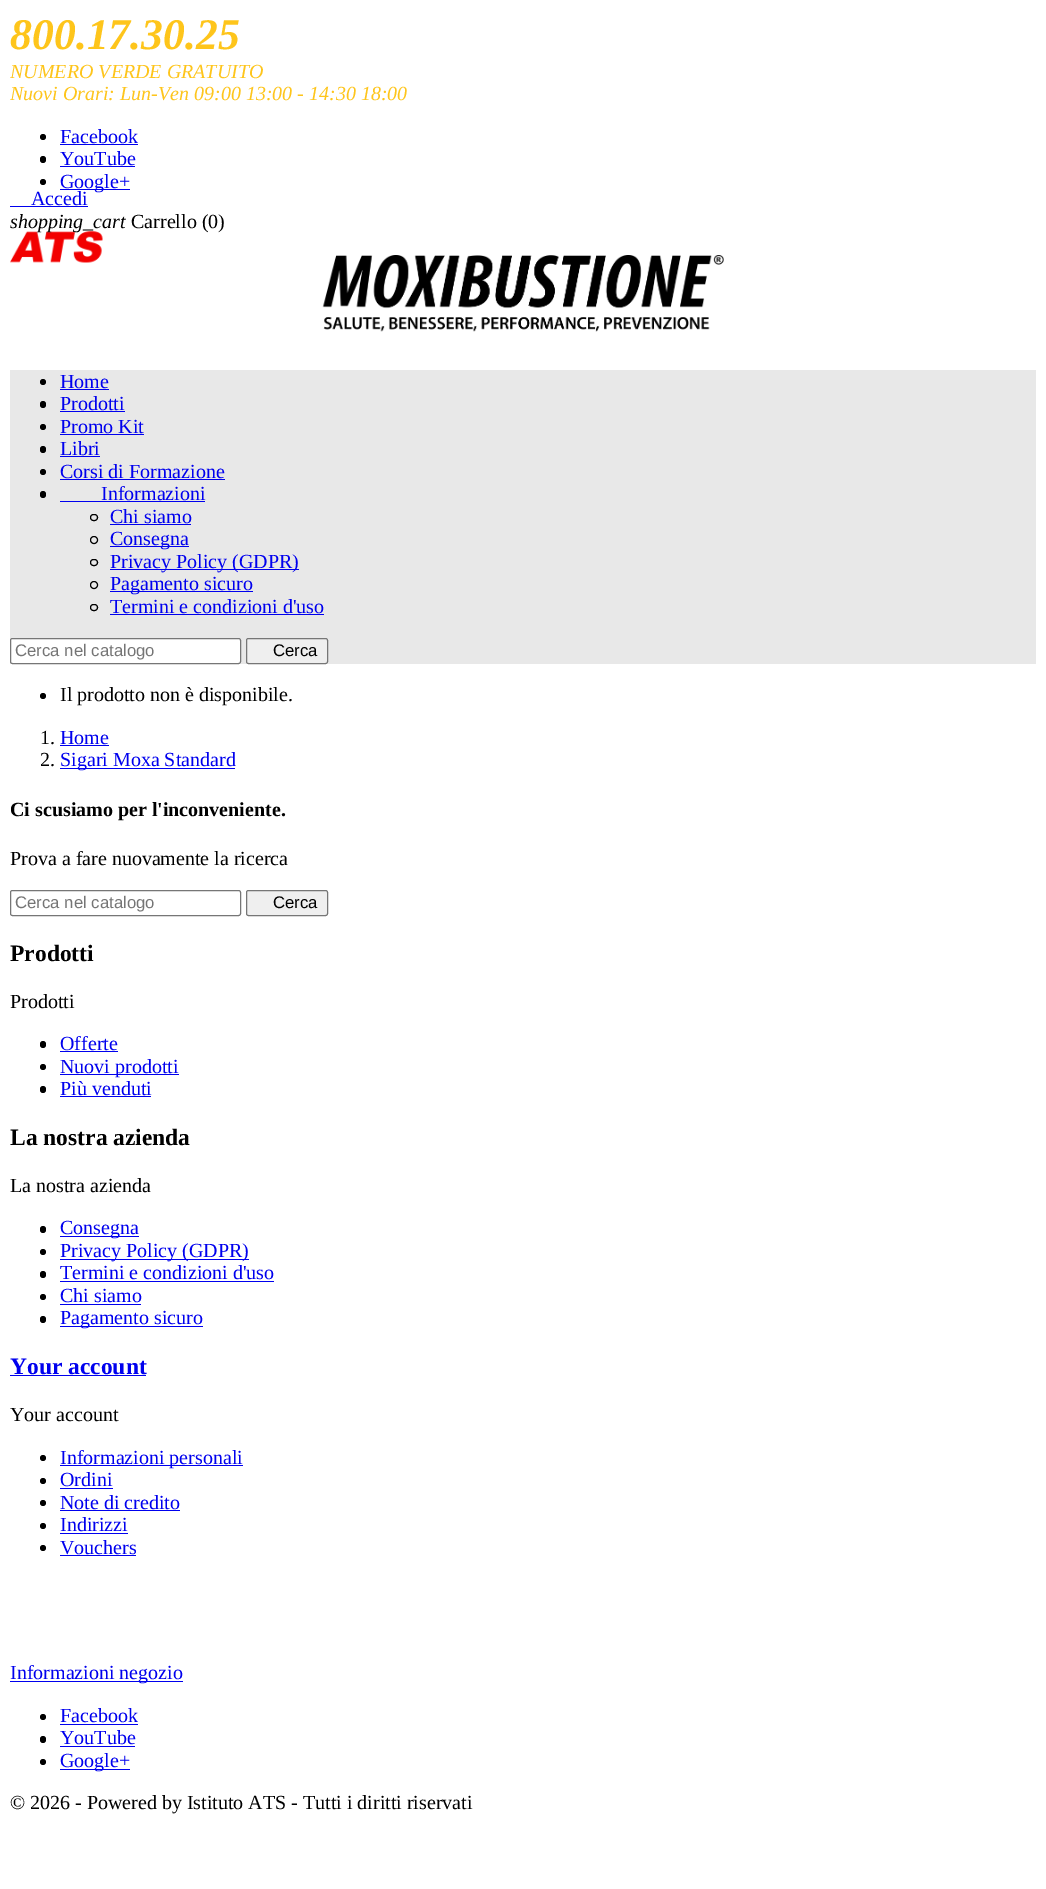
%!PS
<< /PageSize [1046 1889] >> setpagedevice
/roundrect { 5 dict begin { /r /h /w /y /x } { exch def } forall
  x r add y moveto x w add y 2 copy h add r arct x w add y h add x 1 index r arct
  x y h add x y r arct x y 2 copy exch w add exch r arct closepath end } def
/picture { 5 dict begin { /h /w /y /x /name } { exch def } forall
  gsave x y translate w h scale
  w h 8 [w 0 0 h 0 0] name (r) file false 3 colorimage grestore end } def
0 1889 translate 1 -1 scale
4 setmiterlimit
1 setgray
0 0 1046 1889 rectfill
/LiberationSerif-BoldItalic [43.75 0 0 -43.75 0 0] selectfont
0.996 0.773 0.106 setrgbcolor
10 49 moveto (800.17.30.25) show
/LiberationSerif-Italic [20 0 0 -20 0 0] selectfont
10 78 moveto (NUMERO VERDE GRATUITO) show
10 100 moveto (Nuovi Orari: Lun-Ven 09:00 13:00 - 14:30 18:00) show
0 setgray
newpath 43 137 3 0 360 arc closepath fill
/LiberationSerif-Regular [20 0 0 -20 0 0] selectfont
0 0 0.933 setrgbcolor
60 143 moveto (Facebook) show
60 144 78 1 rectfill
0 setgray
40 156 6 7 3 roundrect fill
0 0 0.933 setrgbcolor
60 165 moveto (YouTube) show
60 166 75 1 rectfill
0 setgray
newpath 43 182 3 0 360 arc closepath fill
0 0 0.933 setrgbcolor
60 189 70 1 rectfill
60 188 moveto (Google+) show
(img1.rgb) 10 231 93 32 picture
31 205 moveto (Accedi) show
10 206 78 1 rectfill
/LiberationSerif-Italic [20 0 0 -20 0 0] selectfont
0 setgray
10 228 moveto (shopping_cart) show
/LiberationSerif-Regular [20 0 0 -20 0 0] selectfont
131 228 moveto (Carrello \(0\)) show
(img2.rgb) 322 255 402 77 picture
0.91 setgray
10 370 1026 294 rectfill
0 setgray
newpath 43 382 3 0 360 arc closepath fill
0 0 0.933 setrgbcolor
60 388 moveto (Home) show
60 389 49 1 rectfill
0 setgray
40 401 6 7 3 roundrect fill
0 0 0.933 setrgbcolor
60 410 moveto (Prodotti) show
60 411 65 1 rectfill
0 setgray
newpath 43 427 3 0 360 arc closepath fill
0 0 0.933 setrgbcolor
60 433 moveto (Promo Kit) show
60 434 84 1 rectfill
0 setgray
40 446 6 7 3 roundrect fill
0 0 0.933 setrgbcolor
60 455 moveto (Libri) show
60 456 40 1 rectfill
0 setgray
newpath 43 472 3 0 360 arc closepath fill
0 0 0.933 setrgbcolor
60 478 moveto (Corsi di Formazione) show
60 479 165 1 rectfill
0 setgray
40 491 6 7 3 roundrect fill
0 0 0.933 setrgbcolor
101 500 moveto (Informazioni) show
60 501 145 1 rectfill
0 setgray
90.5 514.5 7 6 3 roundrect stroke
0 0 0.933 setrgbcolor
110 523 moveto (Chi siamo) show
110 524 81 1 rectfill
0 setgray
newpath 94 540 3.5 0 360 arc closepath stroke
0 0 0.933 setrgbcolor
110 546 79 1 rectfill
110 545 moveto (Consegna) show
0 setgray
90.5 559.5 7 6 3 roundrect stroke
0 0 0.933 setrgbcolor
110 569 189 1 rectfill
110 568 moveto (Privacy Policy \(GDPR\)) show
0 setgray
newpath 94 585 3.5 0 360 arc closepath stroke
0 0 0.933 setrgbcolor
110 591 143 1 rectfill
110 590 moveto (Pagamento sicuro) show
0 setgray
90.5 604.5 7 6 3 roundrect stroke
0 0 0.933 setrgbcolor
110 613 moveto (Termini e condizioni d'uso) show
110 614 214 1 rectfill
1 setgray
10.5 638.5 230 25 2 roundrect gsave fill grestore
0.463 setgray
stroke
/LiberationSans-Regular [16.75 0 0 -16.75 0 0] selectfont
0.459 setgray
15 656 moveto (Cerca nel catalogo) show
0.937 setgray
246.5 638.5 81 25 2 roundrect gsave fill grestore
0.463 setgray
stroke
0 setgray
273 656 moveto (Cerca) show
newpath 43 696 3 0 360 arc closepath fill
/LiberationSerif-Regular [20 0 0 -20 0 0] selectfont
60 701 moveto (Il prodotto non è disponibile.) show
40 744 moveto (1.) show
0 0 0.933 setrgbcolor
60 744 moveto (Home) show
60 745 49 1 rectfill
0 setgray
40 766 moveto (2.) show
0 0 0.933 setrgbcolor
60 768 175 1 rectfill
60 766 moveto (Sigari Moxa Standard) show
/LiberationSerif-Bold [20 0 0 -20 0 0] selectfont
0 setgray
10 816 moveto (Ci scusiamo per l'inconveniente.) show
/LiberationSerif-Regular [20 0 0 -20 0 0] selectfont
10 865 moveto (Prova a fare nuovamente la ricerca) show
0.463 setgray
10.5 890.5 230 25 2 roundrect stroke
/LiberationSans-Regular [16.75 0 0 -16.75 0 0] selectfont
0.459 setgray
15 908 moveto (Cerca nel catalogo) show
0.937 setgray
246.5 890.5 81 25 2 roundrect gsave fill grestore
0.463 setgray
stroke
0 setgray
273 908 moveto (Cerca) show
/LiberationSerif-Bold [23.5 0 0 -23.5 0 0] selectfont
10 961 moveto (Prodotti) show
/LiberationSerif-Regular [20 0 0 -20 0 0] selectfont
10 1008 moveto (Prodotti) show
40 1041 6 7 3 roundrect fill
0 0 0.933 setrgbcolor
60 1050 moveto (Offerte) show
60 1051 58 1 rectfill
0 setgray
newpath 43 1067 3 0 360 arc closepath fill
0 0 0.933 setrgbcolor
60 1074 119 1 rectfill
60 1073 moveto (Nuovi prodotti) show
0 setgray
40 1086 6 7 3 roundrect fill
0 0 0.933 setrgbcolor
60 1095 moveto (Più venduti) show
60 1096 91 1 rectfill
/LiberationSerif-Bold [23.5 0 0 -23.5 0 0] selectfont
0 setgray
10 1145 moveto (La nostra azienda) show
/LiberationSerif-Regular [20 0 0 -20 0 0] selectfont
10 1192 moveto (La nostra azienda) show
40 1226 6 7 3 roundrect fill
0 0 0.933 setrgbcolor
60 1236 79 1 rectfill
60 1234 moveto (Consegna) show
0 setgray
newpath 43 1252 3 0 360 arc closepath fill
0 0 0.933 setrgbcolor
60 1259 189 1 rectfill
60 1257 moveto (Privacy Policy \(GDPR\)) show
0 setgray
40 1271 6 7 3 roundrect fill
0 0 0.933 setrgbcolor
60 1279 moveto (Termini e condizioni d'uso) show
60 1281 214 1 rectfill
0 setgray
newpath 43 1297 3 0 360 arc closepath fill
0 0 0.933 setrgbcolor
60 1302 moveto (Chi siamo) show
60 1304 81 1 rectfill
0 setgray
40 1316 6 7 3 roundrect fill
0 0 0.933 setrgbcolor
60 1326 143 1 rectfill
60 1324 moveto (Pagamento sicuro) show
/LiberationSerif-Bold [23.5 0 0 -23.5 0 0] selectfont
10 1374 moveto (Your account) show
10 1375 136 1 rectfill
/LiberationSerif-Regular [20 0 0 -20 0 0] selectfont
0 setgray
10 1421 moveto (Your account) show
newpath 43 1458 3 0 360 arc closepath fill
0 0 0.933 setrgbcolor
60 1465 183 1 rectfill
60 1464 moveto (Informazioni personali) show
0 setgray
newpath 43 1481 3 0 360 arc closepath fill
0 0 0.933 setrgbcolor
60 1486 moveto (Ordini) show
60 1488 53 1 rectfill
0 setgray
newpath 43 1503 3 0 360 arc closepath fill
0 0 0.933 setrgbcolor
60 1509 moveto (Note di credito) show
60 1510 120 1 rectfill
0 setgray
newpath 43 1526 3 0 360 arc closepath fill
0 0 0.933 setrgbcolor
60 1531 moveto (Indirizzi) show
60 1533 68 1 rectfill
0 setgray
newpath 43 1548 3 0 360 arc closepath fill
0 0 0.933 setrgbcolor
60 1554 moveto (Vouchers) show
60 1555 76 1 rectfill
10 1681 173 1 rectfill
10 1679 moveto (Informazioni negozio) show
0 setgray
newpath 43 1717 3 0 360 arc closepath fill
0 0 0.933 setrgbcolor
60 1722 moveto (Facebook) show
60 1724 78 1 rectfill
0 setgray
40 1736 6 7 3 roundrect fill
0 0 0.933 setrgbcolor
60 1744 moveto (YouTube) show
60 1746 75 1 rectfill
0 setgray
newpath 43 1762 3 0 360 arc closepath fill
0 0 0.933 setrgbcolor
60 1769 70 1 rectfill
60 1767 moveto (Google+) show
0 setgray
10 1809 moveto (© 2026 - Powered by Istituto ATS - Tutti i diritti riservati) show
showpage
